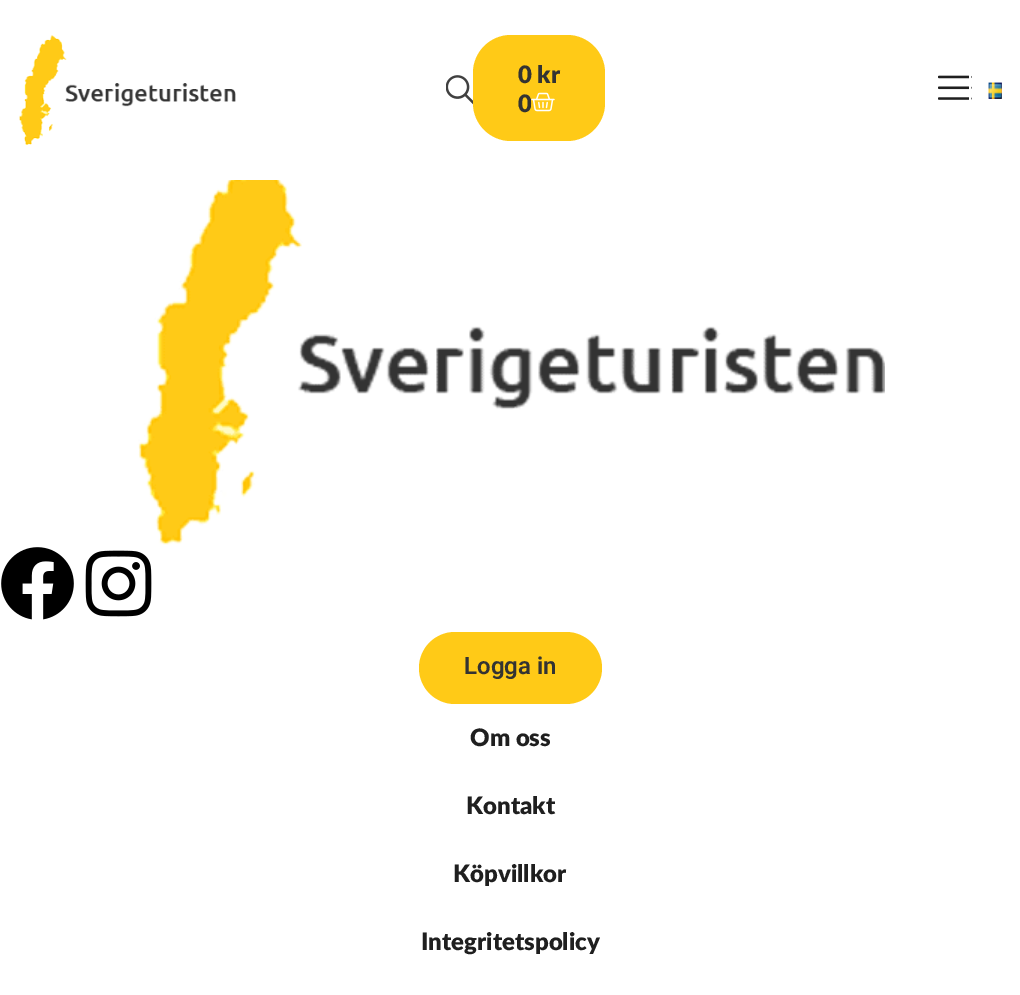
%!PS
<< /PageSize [1020 995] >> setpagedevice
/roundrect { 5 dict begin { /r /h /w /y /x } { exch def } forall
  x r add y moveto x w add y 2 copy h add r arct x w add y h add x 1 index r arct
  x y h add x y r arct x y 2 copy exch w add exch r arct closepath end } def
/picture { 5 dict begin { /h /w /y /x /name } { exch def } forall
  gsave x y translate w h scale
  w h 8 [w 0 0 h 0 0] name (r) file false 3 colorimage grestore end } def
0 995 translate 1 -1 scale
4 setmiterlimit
1 setgray
0 0 1020 995 rectfill
(img1.rgb) 19 35 217 110 picture
(img2.rgb) 446 75 28 30 picture
1 0.792 0.09 setrgbcolor
473 35 132 106 38 roundrect fill
/Lato-ExtraBold [24 0 0 -24 0 0] selectfont
0.2 setgray
518 83 moveto (0 kr) show
518 112 moveto (0) show
(img3.rgb) 531 92 24 20 picture
(img4.rgb) 938 75 34 25 picture
1 setgray
969 75 2 25 rectfill
(img5.rgb) 988 82 14 17 picture
(img6.rgb) 138 180 747 365 picture
(img7.rgb) 1 547 73 73 picture
(img8.rgb) 85 550 67 67 picture
1 0.792 0.09 setrgbcolor
419 632 183 72 36 roundrect fill
/Roboto-SemiBold [24 0 0 -24 0 0] selectfont
0.2 setgray
464 674 moveto (Logga in) show
/Lato-ExtraBold [24 0 0 -24 0 0] selectfont
0.122 setgray
470 746 moveto (Om oss) show
466 814 moveto (Kontakt) show
453 882 moveto (Köpvillkor) show
421 950 moveto (Integritetspolicy) show
showpage
